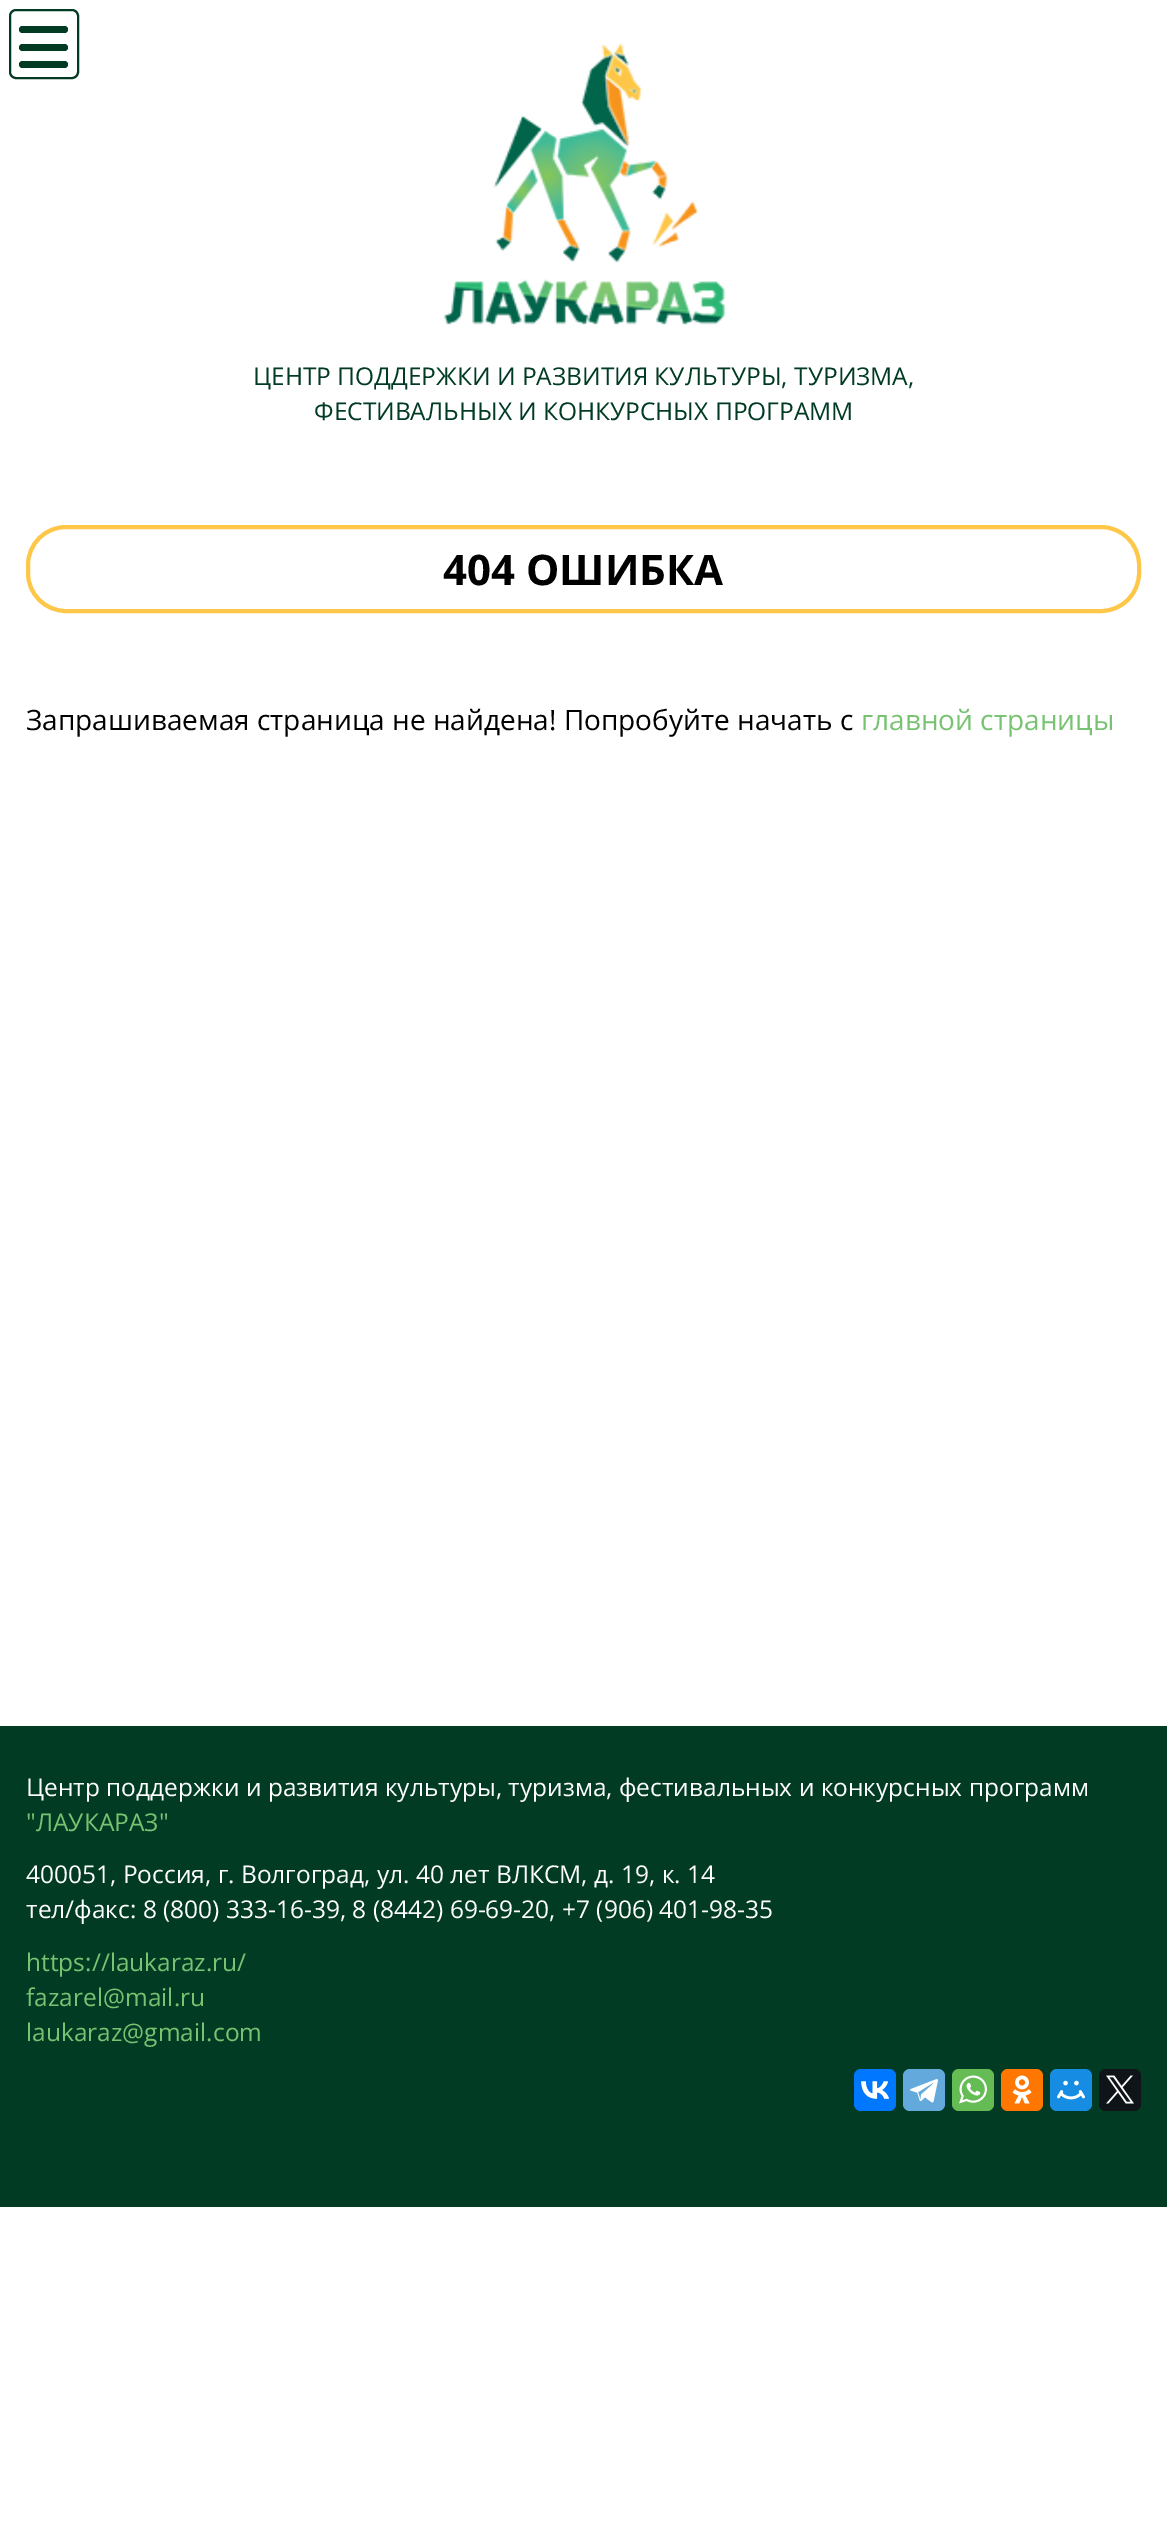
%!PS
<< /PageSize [1167 2537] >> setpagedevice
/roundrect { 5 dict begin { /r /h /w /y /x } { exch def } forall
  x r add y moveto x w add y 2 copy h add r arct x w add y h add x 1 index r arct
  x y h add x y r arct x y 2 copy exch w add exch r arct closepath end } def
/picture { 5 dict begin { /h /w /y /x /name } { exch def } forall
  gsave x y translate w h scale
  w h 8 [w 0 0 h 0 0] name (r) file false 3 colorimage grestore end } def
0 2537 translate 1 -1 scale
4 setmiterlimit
1 setgray
0 0 1167 2537 rectfill
0.004 0.231 0.137 setrgbcolor
2 setlinewidth
10 10 68 68 6 roundrect stroke
19 44 49 7 3.5 roundrect fill
19 26 49 7 3.5 roundrect fill
19 61 49 7 3.5 roundrect fill
(img1.rgb) 444 43 281 282 picture
/OpenSans-Regular [24.5 0 0 -24.5 0 0] selectfont
253 385 moveto (ЦЕНТР ПОДДЕРЖКИ И РАЗВИТИЯ КУЛЬТУРЫ, ТУРИЗМА,) show
314 420 moveto (ФЕСТИВАЛЬНЫХ И КОНКУРСНЫХ ПРОГРАММ) show
0.996 0.78 0.286 setrgbcolor
4 setlinewidth
28 527 1111 84 38 roundrect stroke
/OpenSans-Bold [42 0 0 -42 0 0] selectfont
0 setgray
443 585 moveto (404 ОШИБКА) show
/OpenSans-Regular [28 0 0 -28 0 0] selectfont
26 730 moveto (Запрашиваемая страница не найдена! Попробуйте начать с) show
0.471 0.765 0.443 setrgbcolor
861 730 moveto (главной страницы) show
0.004 0.231 0.137 setrgbcolor
0 1726 1167 481 rectfill
/OpenSans-Regular [24.5 0 0 -24.5 0 0] selectfont
1 setgray
26 1796 moveto (Центр поддержки и развития культуры, туризма, фестивальных и конкурсных программ) show
0.471 0.765 0.443 setrgbcolor
26 1831 moveto ("ЛАУКАРАЗ") show
1 setgray
26 1883 moveto (400051, Россия, г. Волгоград, ул. 40 лет ВЛКСМ, д. 19, к. 14) show
26 1918 moveto (тел/факс: 8 \(800\) 333-16-39, 8 \(8442\) 69-69-20, +7 \(906\) 401-98-35) show
0.471 0.765 0.443 setrgbcolor
26 1971 moveto (https://laukaraz.ru/) show
26 2006 moveto (fazarel@mail.ru) show
26 2041 moveto (laukaraz@gmail.com) show
0 0.467 1 setrgbcolor
854 2069 42 42 7 roundrect fill
(img2.rgb) 861 2081 29 18 picture
0.392 0.663 0.863 setrgbcolor
903 2069 42 42 7 roundrect fill
(img3.rgb) 910 2079 28 24 picture
0.396 0.737 0.329 setrgbcolor
952 2069 42 42 7 roundrect fill
(img4.rgb) 959 2075 28 29 picture
1 0.467 0 setrgbcolor
1001 2069 42 42 7 roundrect fill
(img5.rgb) 1012 2075 20 29 picture
0.086 0.553 0.886 setrgbcolor
1050 2069 42 42 7 roundrect fill
(img6.rgb) 1057 2080 28 20 picture
0.059 0.078 0.098 setrgbcolor
1099 2069 42 42 7 roundrect fill
(img7.rgb) 1106 2075 28 29 picture
showpage
